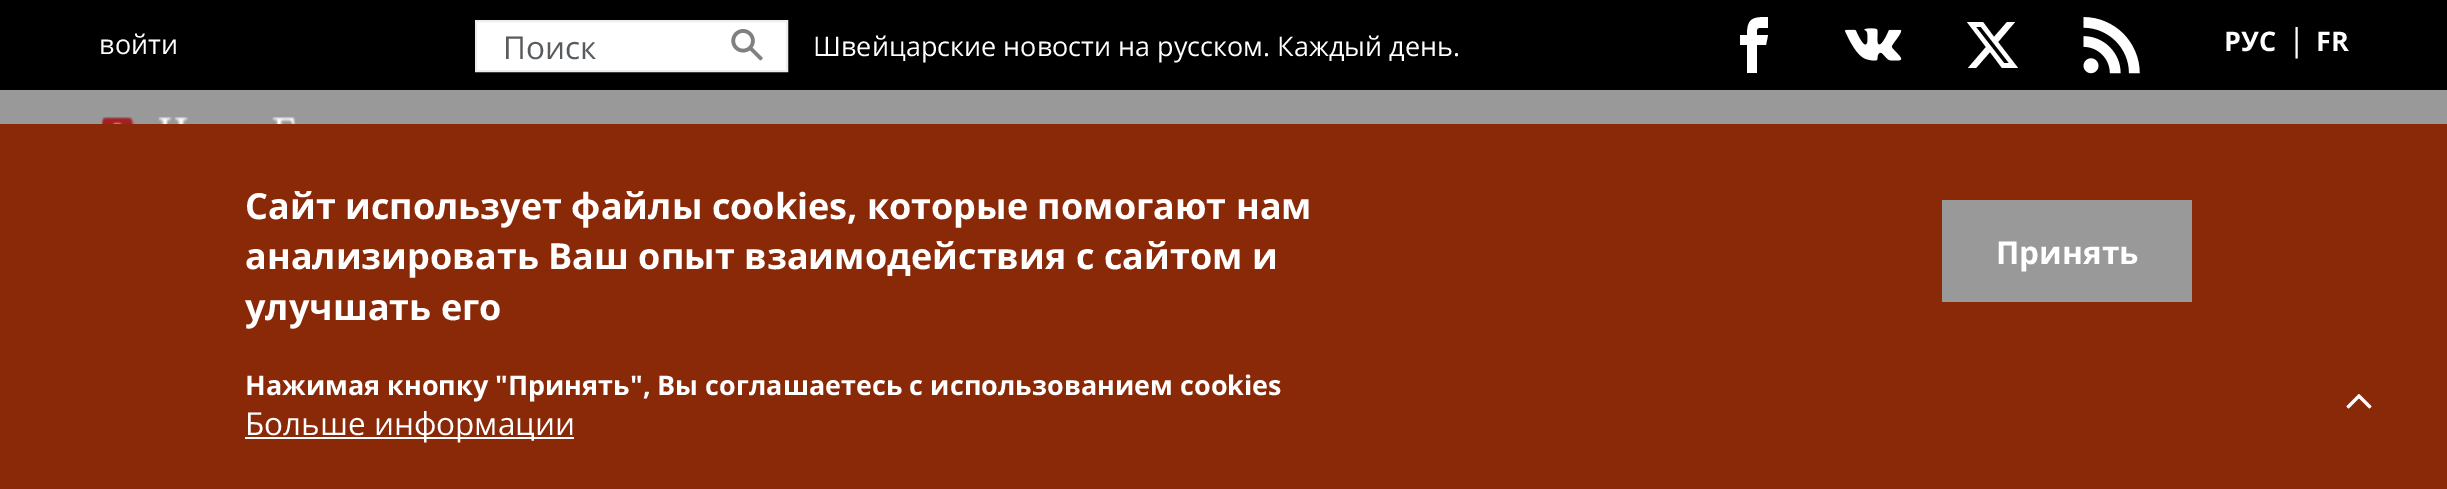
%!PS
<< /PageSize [2447 489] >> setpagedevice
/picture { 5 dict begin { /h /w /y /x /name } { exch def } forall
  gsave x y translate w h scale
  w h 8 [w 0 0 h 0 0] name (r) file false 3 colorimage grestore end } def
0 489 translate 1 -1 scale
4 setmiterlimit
0 setgray
0 0 2447 489 rectfill
/OpenSans-Regular [27 0 0 -27 0 0] selectfont
1 setgray
99 54 moveto (войти) show
newpath 476 21 moveto 787 21 lineto 787 71 lineto 476 71 lineto closepath gsave fill grestore
0.929 setgray
2 setlinewidth
stroke
/OpenSans-Regular [31.5 0 0 -31.5 0 0] selectfont
0.349 0.361 0.373 setrgbcolor
503 59 moveto (Поиск) show
(img1.rgb) 731 29 32 32 picture
/OpenSans-Regular [27 0 0 -27 0 0] selectfont
1 setgray
813 56 moveto (Швейцарские новости на русском. Каждый день.) show
newpath 1759 28 moveto 1768 28 lineto 1768 17 lineto 1753 17 1747 18 1747 35 curveto 1740 35 lineto 1740 45 lineto 1747 45 lineto 1747 73 lineto 1757 73 lineto 1757 45 lineto 1766 45 lineto 1768 35 lineto 1757 35 lineto 1757 33 1756 28 1759 28 curveto closepath fill
(img2.rgb) 1845 28 57 33 picture
newpath 2007 22 moveto 2015 22 lineto 1998 42 lineto 2018 68 lineto 2002 68 lineto 1990 52 lineto 1976 68 lineto 1968 68 lineto 1986 47 lineto 1967 22 lineto 1983 22 lineto 1994 37 lineto closepath 2004 63 moveto 2009 63 lineto 1981 27 lineto 1976 27 lineto closepath fill
(img3.rgb) 2083 17 57 57 picture
/OpenSans-Bold [27 0 0 -27 0 0] selectfont
2224 51 moveto (РУС) show
/OpenSans-Regular [31.5 0 0 -31.5 0 0] selectfont
2288 51 moveto (|) show
/OpenSans-Bold [27 0 0 -27 0 0] selectfont
2316 51 moveto (FR) show
0.6 setgray
0 90 2447 34 rectfill
(img4.rgb) 101 117 267 7 picture
0.541 0.161 0.031 setrgbcolor
0 124 2447 365 rectfill
/OpenSans-Bold [36 0 0 -36 0 0] selectfont
1 setgray
245 219 moveto (Сайт использует файлы cookies, которые помогают нам) show
245 269 moveto (анализировать Ваш опыт взаимодействия с сайтом и) show
245 320 moveto (улучшать его) show
/OpenSans-Bold [27 0 0 -27 0 0] selectfont
245 395 moveto (Нажимая кнопку "Принять", Вы соглашаетесь с использованием cookies) show
245 437 329 2 rectfill
/OpenSans-Regular [31.5 0 0 -31.5 0 0] selectfont
245 435 moveto (Больше информации) show
0.6 setgray
1942 200 250 102 rectfill
/OpenSans-Bold [31.5 0 0 -31.5 0 0] selectfont
1 setgray
1996 264 moveto (Принять) show
(img5.rgb) 2346 394 26 15 picture
showpage
